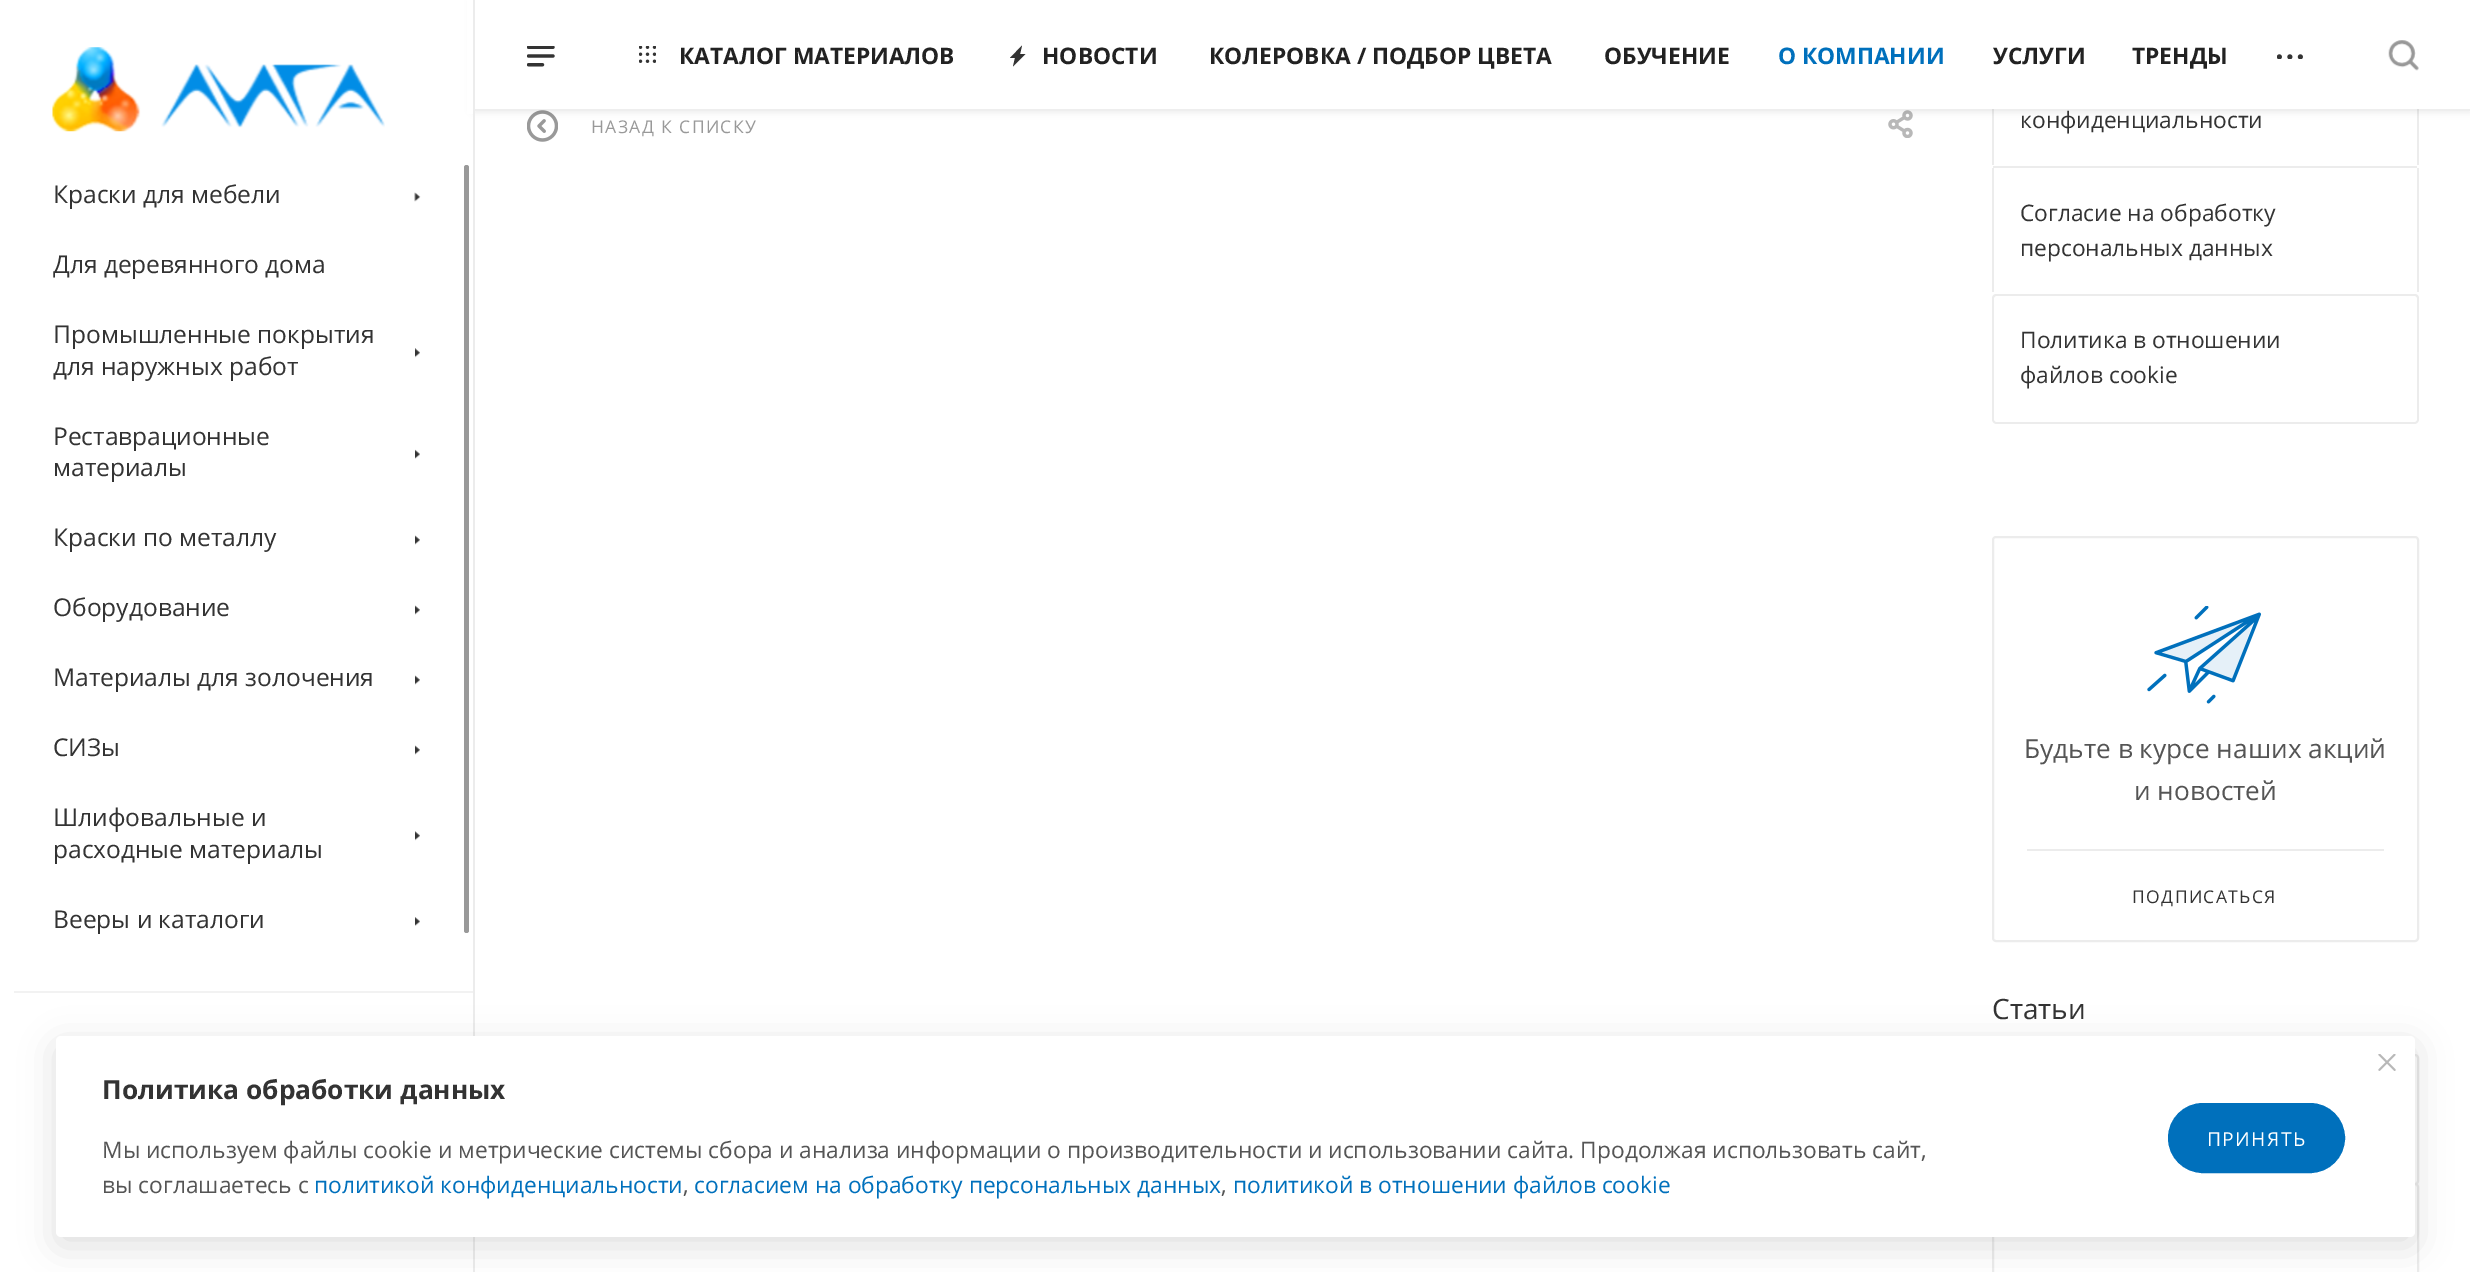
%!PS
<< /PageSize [2470 1272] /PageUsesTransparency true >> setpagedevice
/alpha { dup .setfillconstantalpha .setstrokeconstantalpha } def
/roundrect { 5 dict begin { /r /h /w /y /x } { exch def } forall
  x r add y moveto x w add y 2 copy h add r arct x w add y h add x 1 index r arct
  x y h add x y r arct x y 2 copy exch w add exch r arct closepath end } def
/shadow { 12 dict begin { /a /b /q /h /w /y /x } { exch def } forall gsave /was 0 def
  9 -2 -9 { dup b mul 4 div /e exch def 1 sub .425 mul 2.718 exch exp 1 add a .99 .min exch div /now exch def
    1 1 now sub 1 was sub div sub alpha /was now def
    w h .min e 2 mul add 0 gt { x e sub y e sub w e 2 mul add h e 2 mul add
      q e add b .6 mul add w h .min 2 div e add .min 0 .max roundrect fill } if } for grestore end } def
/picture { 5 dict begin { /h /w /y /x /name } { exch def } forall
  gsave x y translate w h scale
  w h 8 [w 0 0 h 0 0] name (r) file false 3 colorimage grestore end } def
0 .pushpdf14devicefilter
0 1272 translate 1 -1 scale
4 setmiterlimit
1 setgray
0 0 2470 1272 rectfill
(img12.rgb) 527 110 31 32 picture
(img13.rgb) 1888 110 25 28 picture
0.925 setgray
2417 109 2 56 rectfill
1992 109 2 56 rectfill
0 setgray
474 2 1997 108 0 4.5 0.14 shadow
1 setgray
475 0 1995 109 rectfill
(img1.rgb) 527 46 28 21 picture
(img2.rgb) 639 46 17 17 picture
/OpenSans-Bold [22.75 0 0 -22.75 0 0] selectfont
0.133 setgray
679 64 moveto (КАТАЛОГ МАТЕРИАЛОВ) show
0.2 setgray
newpath 1022 45.5 moveto 1010 58 lineto 1015 58 lineto 1013 66.5 lineto 1025.5 54 lineto 1020 54 lineto closepath eofill
0.133 setgray
1042 64 moveto (НОВОСТИ) show
1209 64 moveto (КОЛЕРОВКА / ПОДБОР ЦВЕТА) show
1604 64 moveto (ОБУЧЕНИЕ) show
0 0.439 0.737 setrgbcolor
1778 64 moveto (О КОМПАНИИ) show
0.133 setgray
1993 64 moveto (УСЛУГИ) show
2132 64 moveto (ТРЕНДЫ) show
(img3.rgb) 2277 54 26 5 picture
(img4.rgb) 2388 40 31 31 picture
1 setgray
467 0 6 114 rectfill
0.925 setgray
473 0 2 1272 rectfill
(img5.rgb) 52 47 333 85 picture
/OpenSans-Regular [24.5 0 0 -24.5 0 0] selectfont
0.2 setgray
53 203 moveto (Краски для мебели) show
(img6.rgb) 414 192 7 10 picture
53 273 moveto (Для деревянного дома) show
53 343 moveto (Промышленные покрытия) show
(img7.rgb) 415 348 5 10 picture
53 375 moveto (для наружных работ) show
53 445 moveto (Реставрационные) show
(img8.rgb) 415 449 5 10 picture
53 476 moveto (материалы) show
53 546 moveto (Краски по металлу) show
(img9.rgb) 415 535 5 10 picture
53 616 moveto (Оборудование) show
(img9.rgb) 415 605 5 10 picture
53 686 moveto (Материалы для золочения) show
(img9.rgb) 415 675 5 10 picture
53 756 moveto (СИЗы) show
(img9.rgb) 415 745 5 10 picture
53 826 moveto (Шлифовальные и) show
(img10.rgb) 415 831 5 10 picture
53 858 moveto (расходные материалы) show
53 928 moveto (Вееры и каталоги) show
(img11.rgb) 415 917 5 9 picture
0.949 setgray
14 991 459 2 rectfill
0.6 setgray
464 165 5 768 2.5 roundrect fill
/OpenSans-Regular [17.5 0 0 -17.5 0 0] selectfont
591 133 moveto 1.4 0 (НАЗАД К СПИСКУ) ashow
/OpenSans-Regular [22.75 0 0 -22.75 0 0] selectfont
0.2 setgray
2020 128 moveto (конфиденциальности) show
0.925 setgray
1993 166 424 2 rectfill
2417 168 2 124 rectfill
1992 168 2 124 rectfill
0.2 setgray
2020 221 moveto (Согласие на обработку) show
2020 256 moveto (персональных данных) show
0.925 setgray
newpath 1996 294 moveto 1994 294 1992 296 1992 298 curveto 1992 419 lineto 1992 422 1994 424 1997 424 curveto 2414 424 lineto 2417 424 2419 422 2419 419 curveto 2419 298 lineto 2419 296 2417 294 2415 294 curveto closepath 1996 296 moveto 1995 296 1994 297 1994 298 curveto 1994 420 lineto 1994 421 1995 422 1996 422 curveto 2415 422 lineto 2416 422 2417 421 2417 420 curveto 2417 298 lineto 2417 297 2416 296 2415 296 curveto closepath eofill
0.2 setgray
2020 348 moveto (Политика в отношении) show
2020 383 moveto (файлов cookie) show
0.925 setgray
2 setlinewidth
1993 537 425 404 3 roundrect stroke
(img14.rgb) 2147 606 114 98 picture
/OpenSans-Regular [26.25 0 0 -26.25 0 0] selectfont
0.333 setgray
2024 758 moveto (Будьте в курсе наших акций) show
2134 800 moveto (и новостей) show
0.925 setgray
2027 849 357 2 rectfill
/OpenSans-Regular [17.5 0 0 -17.5 0 0] selectfont
0.2 setgray
2132 903 moveto 1.4 0 (ПОДПИСАТЬСЯ) ashow
/OpenSans-Regular [28 0 0 -28 0 0] selectfont
1992 1019 moveto (Статьи) show
0.925 setgray
1993 1055 425 129 3 roundrect stroke
1993 1184 425 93 3 roundrect stroke
0 setgray
56 1045 2359 201 5 17.5 0.12 shadow
1 setgray
56 1036 2359 201 5 roundrect fill
(img15.rgb) 2378 1054 18 17 picture
/OpenSans-Bold [26.25 0 0 -26.25 0 0] selectfont
0.2 setgray
102 1099 moveto (Политика обработки данных) show
/OpenSans-Regular [22.75 0 0 -22.75 0 0] selectfont
0.333 setgray
102 1158 moveto (Мы используем файлы cookie и метрические системы сбора и анализа информации о производительности и использовании сайта. Продолжая использовать сайт,) show
102 1193 moveto (вы соглашаетесь с) show
0 0.439 0.737 setrgbcolor
314 1193 moveto (политикой конфиденциальности) show
0.333 setgray
683 1193 moveto (,) show
0 0.439 0.737 setrgbcolor
694 1193 moveto (согласием на обработку персональных данных) show
0.333 setgray
1221 1193 moveto (,) show
0 0.439 0.737 setrgbcolor
1233 1193 moveto (политикой в отношении файлов cookie) show
2169 1104 175 68 34 roundrect gsave fill grestore
stroke
/OpenSans-Regular [19.25 0 0 -19.25 0 0] selectfont
1 setgray
2207 1146 moveto 1.4 0 (ПРИНЯТЬ) ashow
.poppdf14devicefilter showpage
